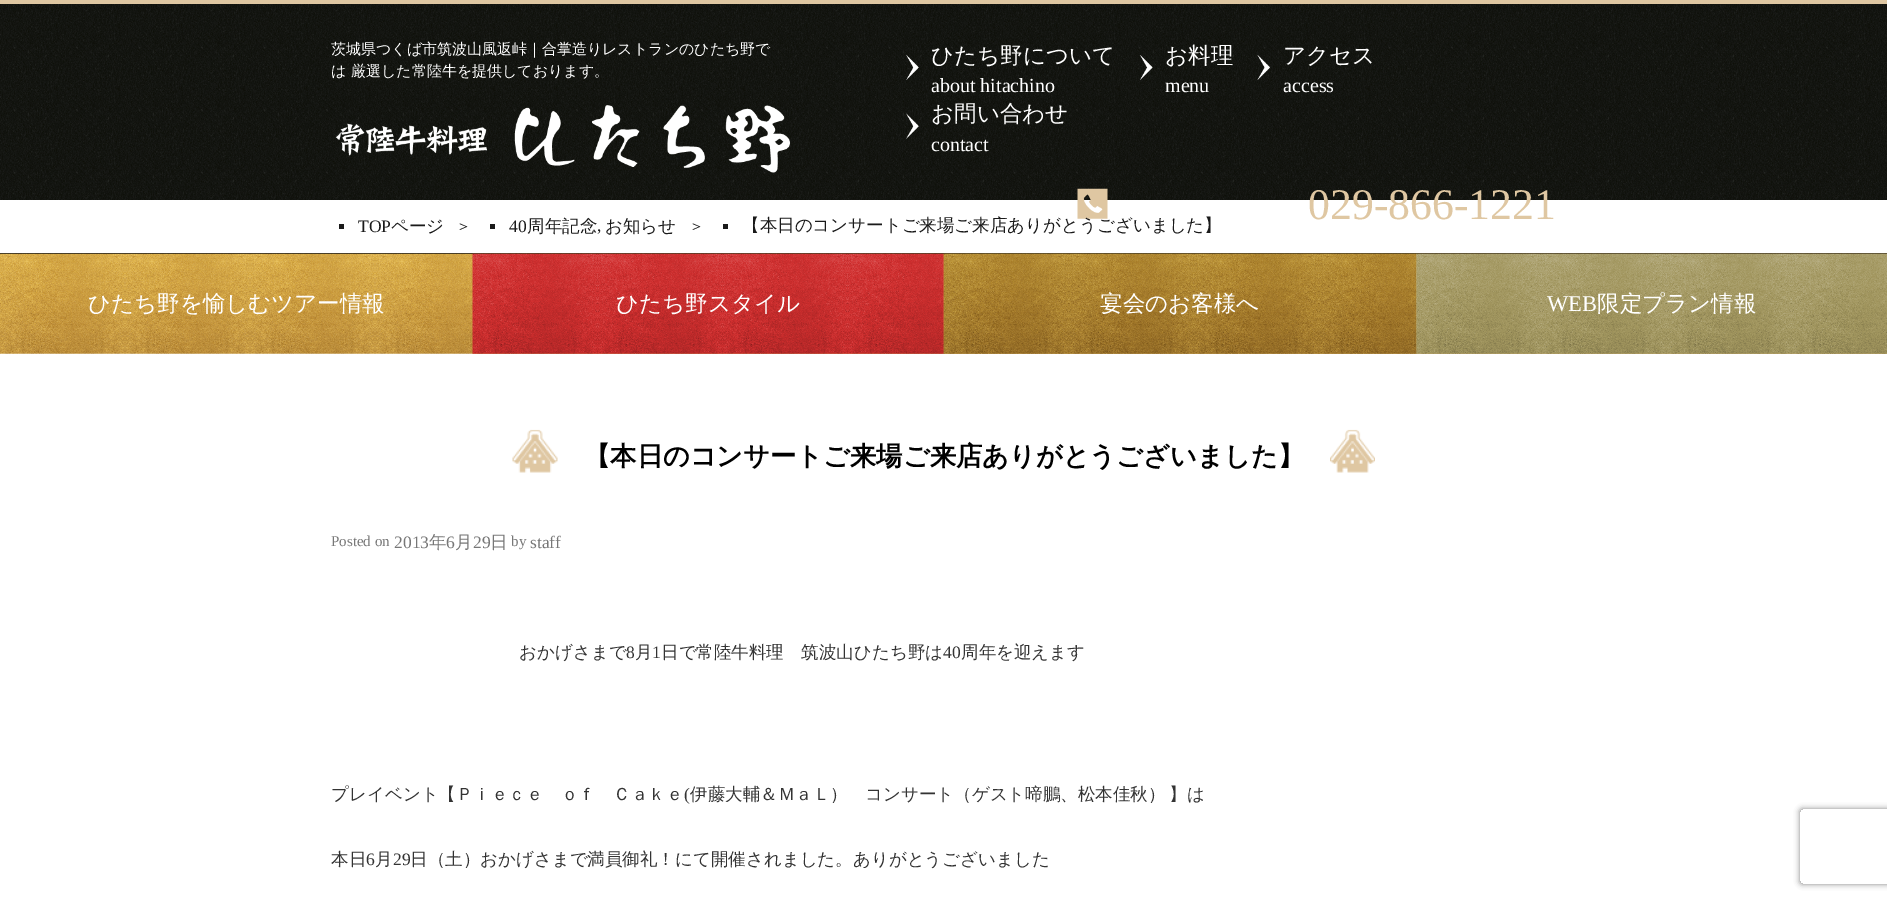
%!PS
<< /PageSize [1887 901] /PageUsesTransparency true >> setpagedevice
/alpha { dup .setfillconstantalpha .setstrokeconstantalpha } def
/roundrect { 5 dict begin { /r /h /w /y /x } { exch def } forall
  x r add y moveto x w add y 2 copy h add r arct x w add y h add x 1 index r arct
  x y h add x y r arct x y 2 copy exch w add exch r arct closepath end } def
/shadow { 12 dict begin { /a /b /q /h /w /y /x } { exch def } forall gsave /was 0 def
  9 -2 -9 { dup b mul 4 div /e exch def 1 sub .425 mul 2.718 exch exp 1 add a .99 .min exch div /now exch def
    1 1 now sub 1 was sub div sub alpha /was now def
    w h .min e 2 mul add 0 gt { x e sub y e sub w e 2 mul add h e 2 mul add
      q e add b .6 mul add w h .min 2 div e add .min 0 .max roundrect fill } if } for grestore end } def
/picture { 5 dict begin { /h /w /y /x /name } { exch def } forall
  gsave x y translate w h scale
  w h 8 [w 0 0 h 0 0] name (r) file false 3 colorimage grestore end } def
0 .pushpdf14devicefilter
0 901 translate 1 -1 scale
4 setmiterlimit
1 setgray
0 0 1887 901 rectfill
(img1.rgb) 0 4 1887 196 picture
0.875 0.78 0.635 setrgbcolor
0 0 1887 4 rectfill
/WenQuanYiZenHei-Medium [15 0 0 -15 0 0] selectfont
1 setgray
331 54 moveto (茨城県つくば市筑波山風返峠｜合掌造りレストランのひたち野で) show
331 76 moveto (は 厳選した常陸牛を提供しております。) show
(img2.rgb) 335 105 455 68 picture
(img3.rgb) 906 55 13 25 picture
/WenQuanYiZenHei-Medium [22.5 0 0 -22.5 0 0] selectfont
931 63 moveto (ひたち野について) show
/LiberationSerif-Regular [20 0 0 -20 0 0] selectfont
931 92 moveto (about hitachino) show
(img4.rgb) 1140 55 13 25 picture
/WenQuanYiZenHei-Medium [22.5 0 0 -22.5 0 0] selectfont
1165 63 moveto (お料理) show
/LiberationSerif-Regular [20 0 0 -20 0 0] selectfont
1165 92 moveto (menu) show
(img5.rgb) 1257 55 13 25 picture
/WenQuanYiZenHei-Medium [22.5 0 0 -22.5 0 0] selectfont
1283 63 moveto (アクセス) show
/LiberationSerif-Regular [20 0 0 -20 0 0] selectfont
1283 92 moveto (access) show
(img6.rgb) 906 113 13 26 picture
/WenQuanYiZenHei-Medium [22.5 0 0 -22.5 0 0] selectfont
931 121 moveto (お問い合わせ) show
/LiberationSerif-Regular [20 0 0 -20 0 0] selectfont
931 151 moveto (contact) show
(img7.rgb) 1077 188 31 31 picture
/LiberationSerif-Regular [43.75 0 0 -43.75 0 0] selectfont
0.875 0.78 0.635 setrgbcolor
1308 219 moveto (029-866-1221) show
0.102 setgray
0 253 1887 1 rectfill
339 224 5 5 rectfill
/LiberationSerif-Regular [17.5 0 0 -17.5 0 0] selectfont
358 232 moveto (TOP) show
/WenQuanYiZenHei-Medium [17.5 0 0 -17.5 0 0] selectfont
391 232 moveto (ページ) show
/WenQuanYiZenHei-Medium [15 0 0 -15 0 0] selectfont
456 231 moveto (＞) show
490 224 5 5 rectfill
/LiberationSerif-Regular [17.5 0 0 -17.5 0 0] selectfont
509 232 moveto (40) show
/WenQuanYiZenHei-Medium [17.5 0 0 -17.5 0 0] selectfont
527 232 moveto (周年記念) show
605 232 moveto (お知らせ) show
/WenQuanYiZenHei-Medium [15 0 0 -15 0 0] selectfont
689 231 moveto (＞) show
/LiberationSerif-Regular [17.5 0 0 -17.5 0 0] selectfont
597 231 moveto (,) show
723 224 5 5 rectfill
/WenQuanYiZenHei-Medium [17.5 0 0 -17.5 0 0] selectfont
742 231 moveto (【本日のコンサートご来場ご来店ありがとうございました】) show
(img8.rgb) 0 253 1887 101 picture
/WenQuanYiZenHei-Medium [22.5 0 0 -22.5 0 0] selectfont
1 setgray
88 311 moveto (ひたち野を愉しむツアー情報) show
(img9.rgb) 472 253 472 101 picture
616 311 moveto (ひたち野スタイル) show
(img10.rgb) 943 253 474 101 picture
1100 311 moveto (宴会のお客様へ) show
(img11.rgb) 1416 253 471 101 picture
/LiberationSerif-Regular [22.5 0 0 -22.5 0 0] selectfont
1547 311 moveto (WEB) show
/WenQuanYiZenHei-Medium [22.5 0 0 -22.5 0 0] selectfont
1597 311 moveto (限定プラン情報) show
(img12.rgb) 512 429 46 44 picture
/WenQuanYiZenHei-Bold [26.25 0 0 -26.25 0 0] selectfont
0 setgray
584 465 moveto (【本日のコンサートご来場ご来店ありがとうございました】) show
(img13.rgb) 1330 429 45 44 picture
/LiberationSerif-Regular [15 0 0 -15 0 0] selectfont
0.467 setgray
331 546 moveto (Posted on) show
/LiberationSerif-Regular [17.5 0 0 -17.5 0 0] selectfont
394 548 moveto (2013) show
/WenQuanYiZenHei-Medium [17.5 0 0 -17.5 0 0] selectfont
429 548 moveto (年) show
/LiberationSerif-Regular [17.5 0 0 -17.5 0 0] selectfont
446 548 moveto (6) show
/WenQuanYiZenHei-Medium [17.5 0 0 -17.5 0 0] selectfont
455 548 moveto (月) show
/LiberationSerif-Regular [17.5 0 0 -17.5 0 0] selectfont
473 548 moveto (29) show
/WenQuanYiZenHei-Medium [17.5 0 0 -17.5 0 0] selectfont
490 548 moveto (日) show
/LiberationSerif-Regular [15 0 0 -15 0 0] selectfont
511 546 moveto (by) show
/LiberationSerif-Regular [17.5 0 0 -17.5 0 0] selectfont
530 548 moveto (staff) show
/WenQuanYiZenHei-Medium [17.5 0 0 -17.5 0 0] selectfont
0.2 setgray
519 658 moveto (おかげさまで) show
/LiberationSerif-Regular [17.5 0 0 -17.5 0 0] selectfont
626 658 moveto (8) show
/WenQuanYiZenHei-Medium [17.5 0 0 -17.5 0 0] selectfont
635 658 moveto (月) show
/LiberationSerif-Regular [17.5 0 0 -17.5 0 0] selectfont
652 658 moveto (1) show
/WenQuanYiZenHei-Medium [17.5 0 0 -17.5 0 0] selectfont
661 658 moveto (日で常陸牛料理　筑波山ひたち野は) show
/LiberationSerif-Regular [17.5 0 0 -17.5 0 0] selectfont
943 658 moveto (40) show
/WenQuanYiZenHei-Medium [17.5 0 0 -17.5 0 0] selectfont
961 658 moveto (周年を迎えます) show
331 800 moveto (プレイベント【Ｐｉｅｃｅ　ｏｆ　Ｃａｋｅ) show
/LiberationSerif-Regular [17.5 0 0 -17.5 0 0] selectfont
684 800 moveto (\() show
/WenQuanYiZenHei-Medium [17.5 0 0 -17.5 0 0] selectfont
690 800 moveto (伊藤大輔＆ＭａＬ）　コンサート（ゲスト啼鵬、松本佳秋）) show
1169 800 moveto (】は) show
331 865 moveto (本日) show
/LiberationSerif-Regular [17.5 0 0 -17.5 0 0] selectfont
366 865 moveto (6) show
/WenQuanYiZenHei-Medium [17.5 0 0 -17.5 0 0] selectfont
375 865 moveto (月) show
/LiberationSerif-Regular [17.5 0 0 -17.5 0 0] selectfont
393 865 moveto (29) show
/WenQuanYiZenHei-Medium [17.5 0 0 -17.5 0 0] selectfont
410 865 moveto (日（土）おかげさまで満員御礼！にて開催されました。ありがとうございました) show
gsave
newpath 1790 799 moveto 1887 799 lineto 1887 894 lineto 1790 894 lineto closepath 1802.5 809 moveto 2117.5 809 lineto 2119 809 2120 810 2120 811.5 curveto 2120 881.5 lineto 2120 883 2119 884 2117.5 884 curveto 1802.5 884 lineto 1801 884 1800 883 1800 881.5 curveto 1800 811.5 lineto 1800 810 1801 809 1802.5 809 curveto closepath eoclip newpath
0.502 setgray
1800 809 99 75 2.5 3 1 shadow
grestore
.poppdf14devicefilter showpage
